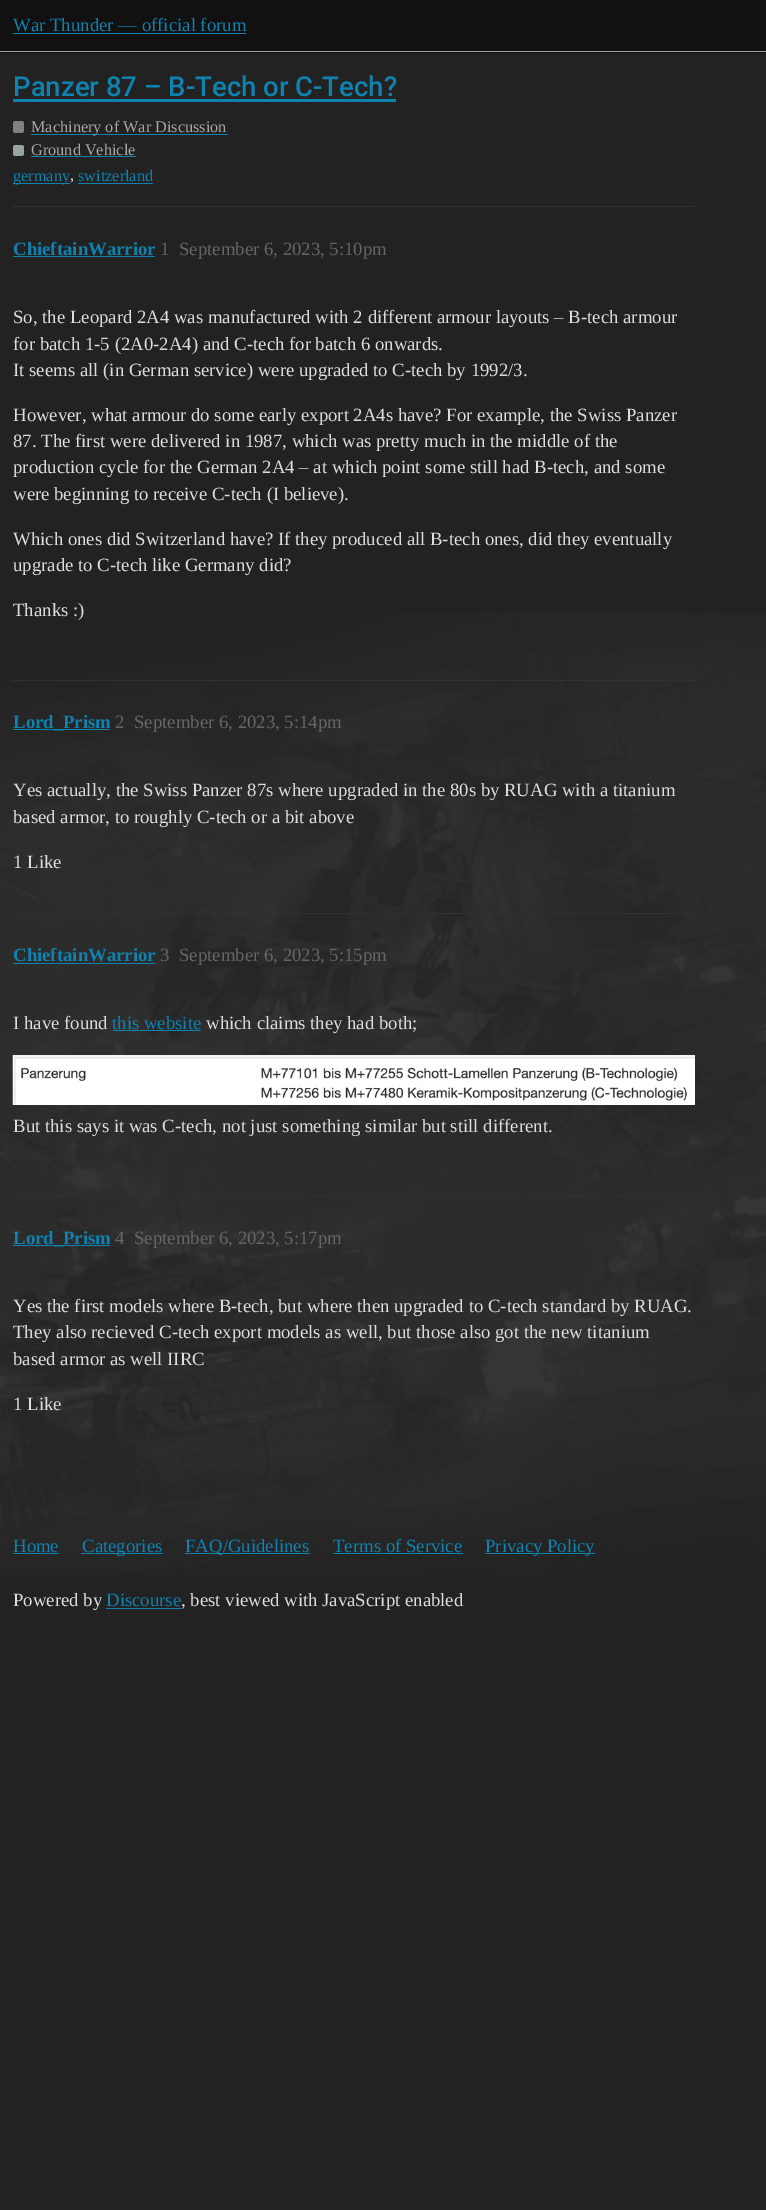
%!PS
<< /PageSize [766 2210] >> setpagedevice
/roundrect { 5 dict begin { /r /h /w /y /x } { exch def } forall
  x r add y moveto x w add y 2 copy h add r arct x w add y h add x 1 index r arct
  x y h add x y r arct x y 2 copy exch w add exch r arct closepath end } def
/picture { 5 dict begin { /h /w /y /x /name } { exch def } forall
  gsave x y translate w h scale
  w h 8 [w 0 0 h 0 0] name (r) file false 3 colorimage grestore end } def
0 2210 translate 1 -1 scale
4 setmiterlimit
0.133 setgray
0 0 766 2210 rectfill
(img1.rgb) 0 612 766 963 picture
0.067 setgray
0 0 766 53 rectfill
0.643 setgray
0 51 766 1 rectfill
/LiberationSerif-Regular [18.75 0 0 -18.75 0 0] selectfont
0.059 0.51 0.686 setrgbcolor
13 31 moveto (War Thunder — official forum) show
13 33 233 1 rectfill
/Roboto-Medium [27.5 0 0 -27.5 0 0] selectfont
13 96 moveto (Panzer 87 – B-Tech or C-Tech?) show
13 99 383 3 rectfill
0.502 0.51 0.506 setrgbcolor
13 121 11 12 2.5 roundrect fill
0.059 0.51 0.686 setrgbcolor
31 134 197 1 rectfill
/LiberationSerif-Regular [16.25 0 0 -16.25 0 0] selectfont
0.651 setgray
31 132 moveto (Machinery of War Discussion) show
0.6 0.639 0.643 setrgbcolor
13 145 11 11 2.5 roundrect fill
0.651 setgray
31 155 moveto (Ground Vehicle) show
0.059 0.51 0.686 setrgbcolor
31 156 105 1 rectfill
13 183 57 1 rectfill
13 181 moveto (germany) show
0.867 setgray
70 180 moveto (,) show
0.059 0.51 0.686 setrgbcolor
78 181 moveto (switzerland) show
78 183 75 1 rectfill
0.192 setgray
13 206 682 1 rectfill
/LiberationSerif-Bold [18.75 0 0 -18.75 0 0] selectfont
0.059 0.51 0.686 setrgbcolor
13 255 moveto (ChieftainWarrior) show
13 256 142 1 rectfill
/LiberationSerif-Regular [18.75 0 0 -18.75 0 0] selectfont
0.4 setgray
160 255 moveto (1) show
179 255 moveto (September 6, 2023, 5:10pm) show
0.867 setgray
13 323 moveto (So, the Leopard 2A4 was manufactured with 2 different armour layouts – B-tech armour) show
13 350 moveto (for batch 1-5 \(2A0-2A4\) and C-tech for batch 6 onwards.) show
13 376 moveto (It seems all \(in German service\) were upgraded to C-tech by 1992/3.) show
13 421 moveto (However, what armour do some early export 2A4s have? For example, the Swiss Panzer) show
13 447 moveto (87. The first were delivered in 1987, which was pretty much in the middle of the) show
13 473 moveto (production cycle for the German 2A4 – at which point some still had B-tech, and some) show
13 500 moveto (were beginning to receive C-tech \(I believe\).) show
13 545 moveto (Which ones did Switzerland have? If they produced all B-tech ones, did they eventually) show
13 571 moveto (upgrade to C-tech like Germany did?) show
gsave
13 286 682 357 rectclip
13 616 moveto (Thanks :\)) show
grestore
0.192 setgray
13 680 682 1 rectfill
0.059 0.51 0.686 setrgbcolor
13 729 97 1 rectfill
/LiberationSerif-Bold [18.75 0 0 -18.75 0 0] selectfont
13 728 moveto (Lord_Prism) show
/LiberationSerif-Regular [18.75 0 0 -18.75 0 0] selectfont
0.4 setgray
115 728 moveto (2) show
134 728 moveto (September 6, 2023, 5:14pm) show
0.867 setgray
13 796 moveto (Yes actually, the Swiss Panzer 87s where upgraded in the 80s by RUAG with a titanium) show
13 823 moveto (based armor, to roughly C-tech or a bit above) show
13 868 moveto (1 Like) show
0.192 setgray
13 913 682 1 rectfill
/LiberationSerif-Bold [18.75 0 0 -18.75 0 0] selectfont
0.059 0.51 0.686 setrgbcolor
13 961 moveto (ChieftainWarrior) show
13 963 142 1 rectfill
/LiberationSerif-Regular [18.75 0 0 -18.75 0 0] selectfont
0.4 setgray
160 961 moveto (3) show
179 961 moveto (September 6, 2023, 5:15pm) show
0.867 setgray
13 1029 moveto (I have found) show
0.059 0.51 0.686 setrgbcolor
112 1029 moveto (this website) show
113 1030 88 1 rectfill
0.867 setgray
206 1029 moveto (which claims they had both;) show
(img2.rgb) 12 1055 683 50 picture
13 1132 moveto (But this says it was C-tech, not just something similar but still different.) show
0.192 setgray
13 1195 682 1 rectfill
0.059 0.51 0.686 setrgbcolor
13 1245 97 1 rectfill
/LiberationSerif-Bold [18.75 0 0 -18.75 0 0] selectfont
13 1244 moveto (Lord_Prism) show
/LiberationSerif-Regular [18.75 0 0 -18.75 0 0] selectfont
0.4 setgray
115 1244 moveto (4) show
134 1244 moveto (September 6, 2023, 5:17pm) show
0.867 setgray
13 1312 moveto (Yes the first models where B-tech, but where then upgraded to C-tech standard by RUAG.) show
gsave
13 1275 682 116 rectclip
13 1338 moveto (They also recieved C-tech export models as well, but those also got the new titanium) show
grestore
13 1365 moveto (based armor as well IIRC) show
13 1410 moveto (1 Like) show
0.059 0.51 0.686 setrgbcolor
13 1552 moveto (Home) show
13 1553 46 1 rectfill
81 1553 82 1 rectfill
82 1552 moveto (Categories) show
185 1553 125 1 rectfill
185 1552 moveto (FAQ/Guidelines) show
333 1552 moveto (Terms of Service) show
333 1553 130 1 rectfill
485 1553 110 1 rectfill
485 1552 moveto (Privacy Policy) show
0.867 setgray
13 1606 moveto (Powered by) show
0.059 0.51 0.686 setrgbcolor
106 1606 moveto (Discourse) show
106 1608 75 1 rectfill
0.867 setgray
181 1606 moveto (, best viewed with JavaScript enabled) show
showpage
